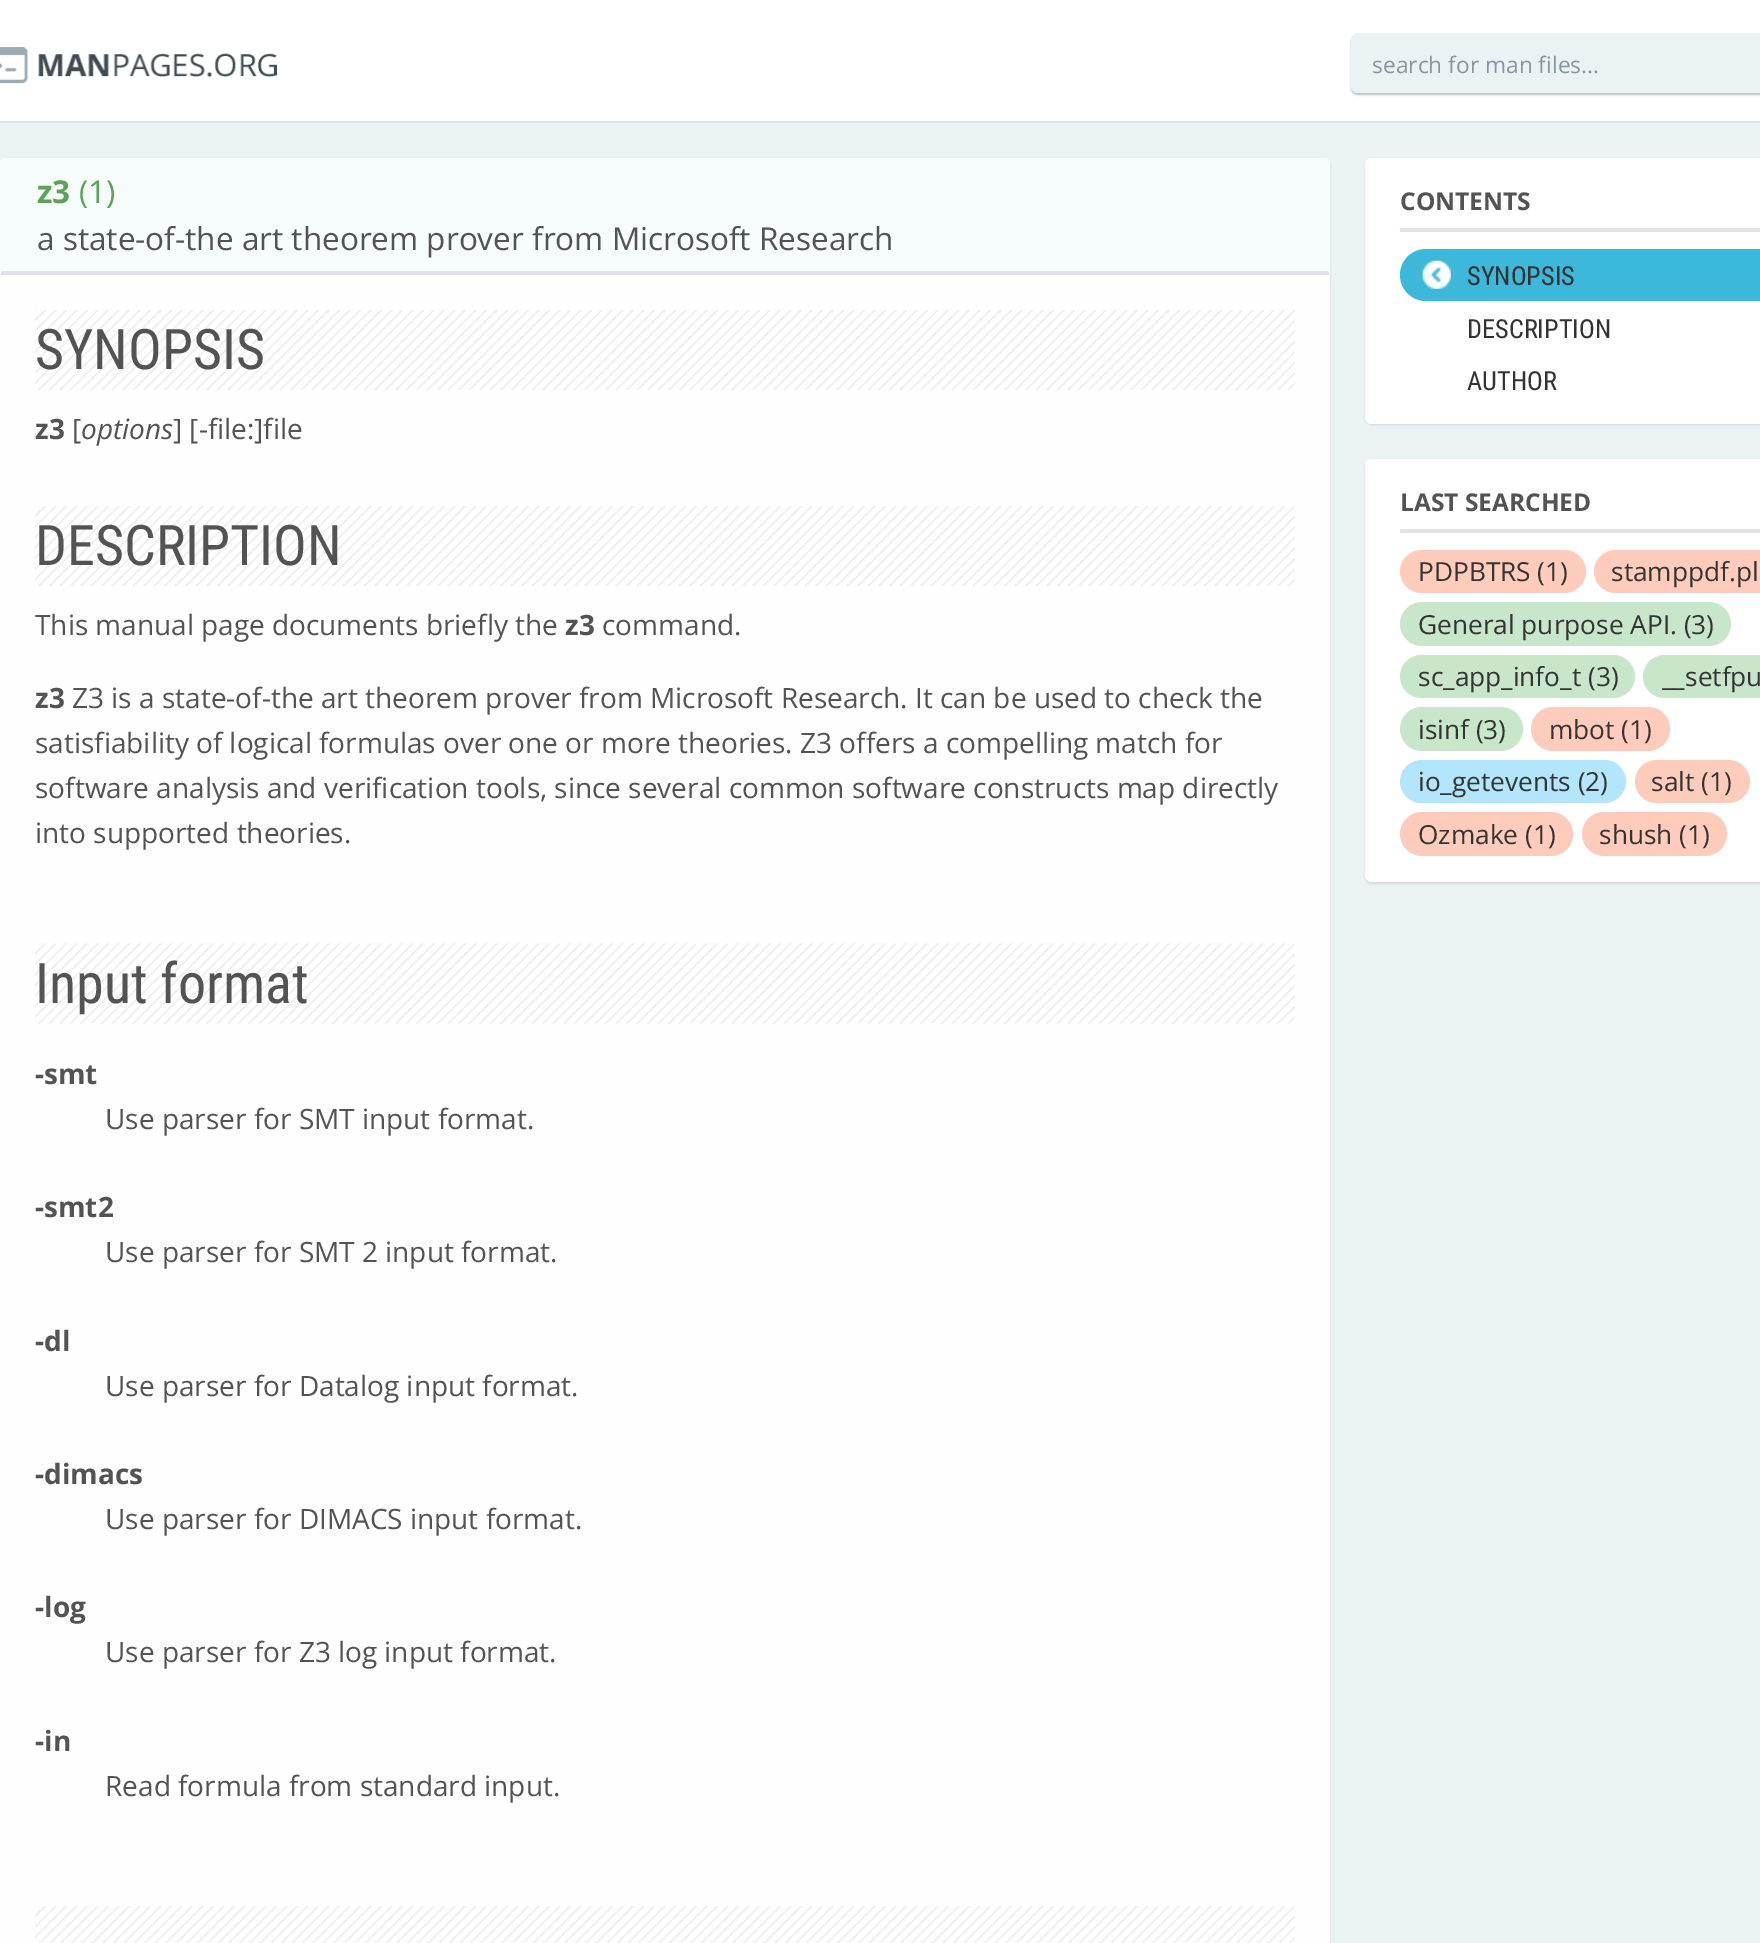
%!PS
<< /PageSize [1760 1943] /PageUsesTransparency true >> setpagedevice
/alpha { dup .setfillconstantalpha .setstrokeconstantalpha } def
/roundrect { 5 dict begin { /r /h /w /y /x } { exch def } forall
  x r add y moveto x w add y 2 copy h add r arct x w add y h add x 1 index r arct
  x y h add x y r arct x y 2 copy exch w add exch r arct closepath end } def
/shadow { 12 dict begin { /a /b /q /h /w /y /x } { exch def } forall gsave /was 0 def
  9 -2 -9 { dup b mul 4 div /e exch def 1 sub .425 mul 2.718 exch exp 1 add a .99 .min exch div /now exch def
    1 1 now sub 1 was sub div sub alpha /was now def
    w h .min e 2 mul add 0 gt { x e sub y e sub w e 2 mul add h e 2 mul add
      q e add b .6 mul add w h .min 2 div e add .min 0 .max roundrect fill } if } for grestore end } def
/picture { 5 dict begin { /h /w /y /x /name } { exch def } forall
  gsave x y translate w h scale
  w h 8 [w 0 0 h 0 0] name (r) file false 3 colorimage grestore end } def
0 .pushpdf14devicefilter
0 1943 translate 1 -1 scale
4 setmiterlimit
0.918 0.949 0.957 setrgbcolor
0 0 1760 1943 rectfill
1 setgray
0 0 1760 121 rectfill
0.863 0.898 0.906 setrgbcolor
0 121 1760 2 rectfill
(img1.rgb) 0 47 277 37 picture
0.024 0.184 0.216 setrgbcolor
1351 35 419 60 7 1 0.3 shadow
0.918 0.949 0.957 setrgbcolor
1351 33 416 60 7 roundrect fill
/OpenSans-Regular [22.75 0 0 -22.75 0 0] selectfont
0.525 0.588 0.616 setrgbcolor
1372 73 moveto (search for man files...) show
0 setgray
0 159 1330 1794 7 1 0.1 shadow
0.996 setgray
newpath 7 158 moveto 1323 158 lineto 1327 158 1330 161 1330 165 curveto 1330 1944 lineto 0 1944 lineto 0 165 lineto 0 161 3 158 7 158 curveto closepath fill
0.965 0.984 0.988 setrgbcolor
newpath 5 158 moveto 1325 158 lineto 1328 158 1330 160 1330 163 curveto 1330 275 lineto 0 275 lineto 0 163 lineto 0 160 2 158 5 158 curveto closepath fill
0.875 0.89 0.914 setrgbcolor
newpath 1330 275 moveto 0 275 lineto 2 271 lineto 1328 271 lineto closepath fill
/OpenSans-Bold [31.5 0 0 -31.5 0 0] selectfont
0.349 0.647 0.322 setrgbcolor
37 203 moveto (z3) show
/OpenSans-Regular [31.5 0 0 -31.5 0 0] selectfont
79 203 moveto (\(1\)) show
0.325 setgray
37 250 moveto (a state-of-the art theorem prover from Microsoft Research) show
(img2.rgb) 35 310 1260 80 picture
/RobotoCondensed-Regular [56 0 0 -56 0 0] selectfont
35 369 moveto (SYNOPSIS) show
/OpenSans-Bold [28 0 0 -28 0 0] selectfont
35 439 moveto (z3) show
/OpenSans-Regular [28 0 0 -28 0 0] selectfont
72 439 moveto ([) show
/OpenSans-Italic [28 0 0 -28 0 0] selectfont
81 439 moveto (options) show
/OpenSans-Regular [28 0 0 -28 0 0] selectfont
173 439 moveto (] [-file:]file) show
(img2.rgb) 35 506 1260 80 picture
/RobotoCondensed-Regular [56 0 0 -56 0 0] selectfont
35 565 moveto (DESCRIPTION) show
/OpenSans-Regular [28 0 0 -28 0 0] selectfont
35 635 moveto (This manual page documents briefly the) show
/OpenSans-Bold [28 0 0 -28 0 0] selectfont
565 635 moveto (z3) show
/OpenSans-Regular [28 0 0 -28 0 0] selectfont
602 635 moveto (command.) show
/OpenSans-Bold [28 0 0 -28 0 0] selectfont
35 708 moveto (z3) show
/OpenSans-Regular [28 0 0 -28 0 0] selectfont
72 708 moveto (Z3 is a state-of-the art theorem prover from Microsoft Research. It can be used to check the) show
35 753 moveto (satisfiability of logical formulas over one or more theories. Z3 offers a compelling match for) show
35 798 moveto (software analysis and verification tools, since several common software constructs map directly) show
35 843 moveto (into supported theories.) show
(img3.rgb) 35 943 1260 81 picture
/RobotoCondensed-Regular [56 0 0 -56 0 0] selectfont
35 1003 moveto (Input format) show
/OpenSans-Bold [28 0 0 -28 0 0] selectfont
35 1084 moveto (-smt) show
/OpenSans-Regular [28 0 0 -28 0 0] selectfont
105 1129 moveto (Use parser for SMT input format.) show
/OpenSans-Bold [28 0 0 -28 0 0] selectfont
35 1217 moveto (-smt2) show
/OpenSans-Regular [28 0 0 -28 0 0] selectfont
105 1262 moveto (Use parser for SMT 2 input format.) show
/OpenSans-Bold [28 0 0 -28 0 0] selectfont
35 1351 moveto (-dl) show
/OpenSans-Regular [28 0 0 -28 0 0] selectfont
105 1396 moveto (Use parser for Datalog input format.) show
/OpenSans-Bold [28 0 0 -28 0 0] selectfont
35 1484 moveto (-dimacs) show
/OpenSans-Regular [28 0 0 -28 0 0] selectfont
105 1529 moveto (Use parser for DIMACS input format.) show
/OpenSans-Bold [28 0 0 -28 0 0] selectfont
35 1617 moveto (-log) show
/OpenSans-Regular [28 0 0 -28 0 0] selectfont
105 1662 moveto (Use parser for Z3 log input format.) show
/OpenSans-Bold [28 0 0 -28 0 0] selectfont
35 1751 moveto (-in) show
/OpenSans-Regular [28 0 0 -28 0 0] selectfont
105 1796 moveto (Read formula from standard input.) show
(img4.rgb) 35 1906 1260 37 picture
0 setgray
1365 159 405 266 7 1 0.1 shadow
1 setgray
newpath 1372 158 moveto 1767 158 lineto 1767 424 lineto 1372 424 lineto 1368 424 1365 421 1365 417 curveto 1365 165 lineto 1365 161 1368 158 1372 158 curveto closepath fill
0.875 0.89 0.914 setrgbcolor
1400 228 360 4 rectfill
/OpenSans-Bold [24.5 0 0 -24.5 0 0] selectfont
0.325 setgray
1400 210 moveto (CONTENTS) show
0.239 0.722 0.859 setrgbcolor
1400 249 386 52 26 roundrect fill
(img5.rgb) 1422 260 29 29 picture
/RobotoCondensed-Regular [26.25 0 0 -26.25 0 0] selectfont
0.2 setgray
1467 285 moveto (SYNOPSIS) show
1467 338 moveto (DESCRIPTION) show
1467 390 moveto (AUTHOR) show
0 setgray
1365 460 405 424 7 1 0.1 shadow
1 setgray
newpath 1372 459 moveto 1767 459 lineto 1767 882 lineto 1372 882 lineto 1368 882 1365 879 1365 875 curveto 1365 466 lineto 1365 462 1368 459 1372 459 curveto closepath fill
0.875 0.89 0.914 setrgbcolor
1400 529 360 4 rectfill
/OpenSans-Bold [24.5 0 0 -24.5 0 0] selectfont
0.325 setgray
1400 511 moveto (LAST SEARCHED) show
1 0.8 0.737 setrgbcolor
1400 550 186 43 21.5 roundrect fill
/OpenSans-Regular [26.25 0 0 -26.25 0 0] selectfont
0.2 setgray
1418 581 moveto (PDPBTRS \(1\)) show
1 0.8 0.737 setrgbcolor
1594 550 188 43 21.5 roundrect fill
0.2 setgray
1611 581 moveto (stamppdf.pl) show
0.784 0.902 0.788 setrgbcolor
1400 602 331 44 22 roundrect fill
0.2 setgray
1418 634 moveto (General purpose API. \(3\)) show
0.784 0.902 0.788 setrgbcolor
1400 655 235 43 21.5 roundrect fill
0.2 setgray
1418 686 moveto (sc_app_info_t \(3\)) show
0.784 0.902 0.788 setrgbcolor
1643 655 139 43 21.5 roundrect fill
0.2 setgray
1662 686 moveto (__setfpu) show
0.784 0.902 0.788 setrgbcolor
1400 707 123 44 22 roundrect fill
0.2 setgray
1418 739 moveto (isinf \(3\)) show
1 0.8 0.737 setrgbcolor
1531 707 139 44 22 roundrect fill
0.2 setgray
1549 739 moveto (mbot \(1\)) show
0.702 0.898 0.988 setrgbcolor
1400 760 226 43 21.5 roundrect fill
0.2 setgray
1418 791 moveto (io_getevents \(2\)) show
1 0.8 0.737 setrgbcolor
1635 760 115 43 21.5 roundrect fill
0.2 setgray
1651 791 moveto (salt \(1\)) show
1 0.8 0.737 setrgbcolor
1400 812 173 44 22 roundrect fill
0.2 setgray
1418 844 moveto (Ozmake \(1\)) show
1 0.8 0.737 setrgbcolor
1582 812 145 44 22 roundrect fill
0.2 setgray
1599 844 moveto (shush \(1\)) show
.poppdf14devicefilter showpage
